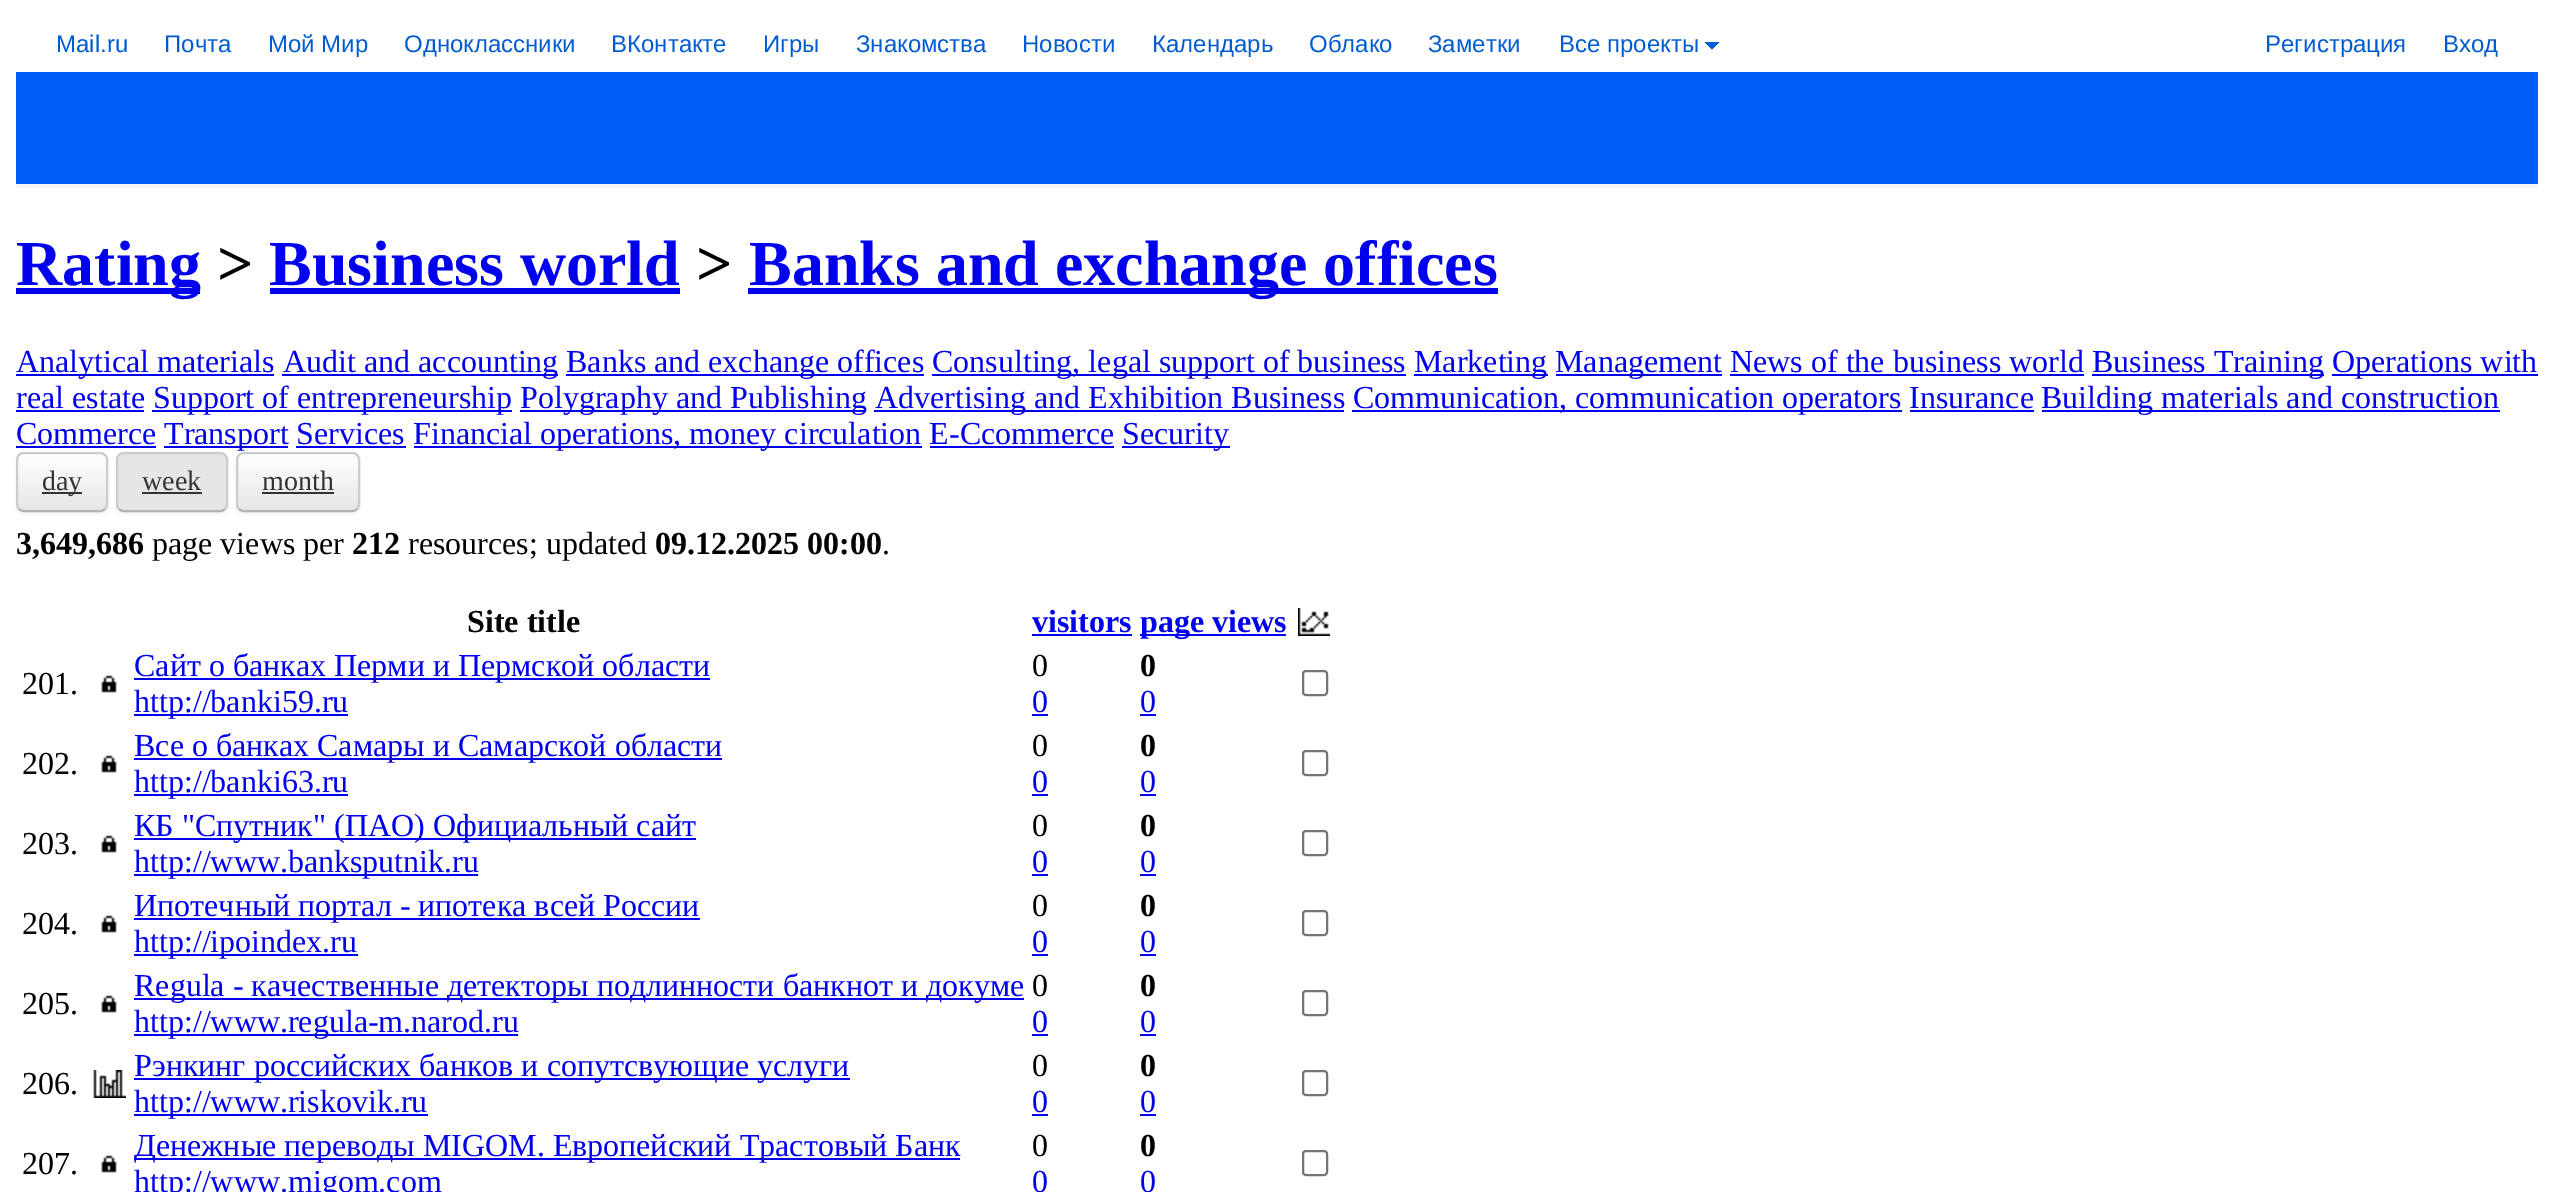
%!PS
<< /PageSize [2553 1192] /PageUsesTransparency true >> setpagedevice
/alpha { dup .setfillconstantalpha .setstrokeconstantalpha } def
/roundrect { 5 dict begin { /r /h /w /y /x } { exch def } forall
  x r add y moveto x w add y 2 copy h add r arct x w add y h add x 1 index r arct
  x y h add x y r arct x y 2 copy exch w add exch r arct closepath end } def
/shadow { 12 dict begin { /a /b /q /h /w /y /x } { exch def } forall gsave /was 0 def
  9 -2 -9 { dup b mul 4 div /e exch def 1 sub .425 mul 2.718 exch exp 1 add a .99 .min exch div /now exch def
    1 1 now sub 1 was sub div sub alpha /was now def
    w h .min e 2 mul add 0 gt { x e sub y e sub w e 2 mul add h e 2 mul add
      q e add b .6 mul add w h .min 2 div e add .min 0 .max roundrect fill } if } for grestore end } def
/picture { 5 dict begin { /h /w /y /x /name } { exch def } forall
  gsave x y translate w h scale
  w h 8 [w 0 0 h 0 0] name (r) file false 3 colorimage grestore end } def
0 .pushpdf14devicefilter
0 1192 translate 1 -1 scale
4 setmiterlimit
1 setgray
0 0 2553 1192 rectfill
/LiberationSans-Regular [24 0 0 -24 0 0] selectfont
0 0.357 0.82 setrgbcolor
56 52 moveto (Mail.ru) show
164 52 moveto (Почта) show
268 52 moveto (Мой Мир) show
404 52 moveto (Одноклассники) show
611 52 moveto (ВКонтакте) show
763 52 moveto (Игры) show
856 52 moveto (Знакомства) show
1022 52 moveto (Новости) show
1152 52 moveto (Календарь) show
1309 52 moveto (Облако) show
1428 52 moveto (Заметки) show
1559 52 moveto (Все проекты) show
newpath 1704 42 moveto 1720 42 lineto 1712 50 lineto closepath fill
1 setgray
newpath 1720 42 moveto 1720 58 lineto 1712 50 lineto closepath 1704 58 moveto 1704 42 lineto 1712 50 lineto closepath fill
0 0.357 0.82 setrgbcolor
2265 52 moveto (Регистрация) show
2443 52 moveto (Вход) show
0.961 setgray
16 184 2522 4 rectfill
0 0.373 0.976 setrgbcolor
16 72 2522 112 rectfill
0 0 0.933 setrgbcolor
16 288 184 6 rectfill
/LiberationSerif-Bold [64 0 0 -64 0 0] selectfont
16 285 moveto (Rating) show
0 setgray
217 285 moveto (>) show
0 0 0.933 setrgbcolor
269 285 moveto (Business world) show
270 288 410 6 rectfill
0 setgray
696 285 moveto (>) show
0 0 0.933 setrgbcolor
748 288 750 6 rectfill
749 285 moveto (Banks and exchange offices) show
16 374 258 2 rectfill
/LiberationSerif-Regular [32 0 0 -32 0 0] selectfont
16 372 moveto (Analytical materials) show
282 374 276 2 rectfill
283 372 moveto (Audit and accounting) show
566 374 358 2 rectfill
566 372 moveto (Banks and exchange offices) show
932 374 474 2 rectfill
932 372 moveto (Consulting, legal support of business) show
1414 374 134 2 rectfill
1414 372 moveto (Marketing) show
1556 374 166 2 rectfill
1555 372 moveto (Management News of the business world) show
2092 374 232 2 rectfill
2092 372 moveto (Business Training) show
2332 374 206 2 rectfill
2332 372 moveto (Operations with) show
1730 374 354 2 rectfill
16 408 moveto (real estate) show
16 410 128 2 rectfill
152 410 360 2 rectfill
153 408 moveto (Support of entrepreneurship) show
520 410 346 2 rectfill
520 408 moveto (Polygraphy and Publishing) show
874 410 470 2 rectfill
875 408 moveto (Advertising and Exhibition Business) show
1352 410 550 2 rectfill
1353 408 moveto (Communication, communication operators Insurance) show
2042 410 458 2 rectfill
2041 408 moveto (Building materials and construction) show
1910 410 124 2 rectfill
16 444 moveto (Commerce) show
16 446 140 2 rectfill
164 446 124 2 rectfill
164 444 moveto (Transport Services) show
414 446 508 2 rectfill
413 444 moveto (Financial operations, money circulation E-Ccommerce) show
1122 446 108 2 rectfill
1122 444 moveto (Security) show
296 446 110 2 rectfill
930 446 184 2 rectfill
0 setgray
16 454 92 60 8 2 0.05 shadow
gsave
16 452 92 60 8 roundrect clip newpath
gsave newpath 16 454 moveto 108 454 lineto 108 510 lineto 16 510 lineto closepath clip newpath
<< /ShadingType 2 /ColorSpace /DeviceRGB /Coords [62 454 62 510] /Extend [true true] /Function << /FunctionType 2 /Domain [0 1] /C0 [1 1 1] /C1 [0.902 0.902 0.902] /N 1 >> >> shfill grestore
grestore
0.702 setgray
2 setlinewidth
newpath 105 509 moveto 103.5 510.5 102 511 100 511 curveto 24 511 lineto 22 511 20.5 510.5 19 509 curveto stroke
0.8 setgray
newpath 19 509 moveto 17.5 507.5 17 506 17 504 curveto 17 460 lineto 17 458 17.5 456.5 19 455 curveto 20.5 453.5 22 453 24 453 curveto 100 453 lineto 102 453 103.5 453.5 105 455 curveto 106.5 456.5 107 458 107 460 curveto 107 504 lineto 107 506 106.5 507.5 105 509 curveto stroke
0.2 setgray
42 492 40 2 rectfill
/LiberationSerif-Regular [28 0 0 -28 0 0] selectfont
42 490 moveto (day) show
0 setgray
116 454 112 60 8 2 0.05 shadow
0.902 setgray
116 452 112 60 8 roundrect fill
0.702 setgray
newpath 225 509 moveto 223.5 510.5 222 511 220 511 curveto 124 511 lineto 122 511 120.5 510.5 119 509 curveto stroke
0.8 setgray
newpath 119 509 moveto 117.5 507.5 117 506 117 504 curveto 117 460 lineto 117 458 117.5 456.5 119 455 curveto 120.5 453.5 122 453 124 453 curveto 220 453 lineto 222 453 223.5 453.5 225 455 curveto 226.5 456.5 227 458 227 460 curveto 227 504 lineto 227 506 226.5 507.5 225 509 curveto stroke
0.2 setgray
142 490 moveto (week) show
142 492 60 2 rectfill
0 setgray
236 454 124 60 8 2 0.05 shadow
gsave
236 452 124 60 8 roundrect clip newpath
gsave newpath 236 454 moveto 360 454 lineto 360 510 lineto 236 510 lineto closepath clip newpath
<< /ShadingType 2 /ColorSpace /DeviceRGB /Coords [298 454 298 510] /Extend [true true] /Function << /FunctionType 2 /Domain [0 1] /C0 [1 1 1] /C1 [0.902 0.902 0.902] /N 1 >> >> shfill grestore
grestore
0.702 setgray
newpath 357 509 moveto 355.5 510.5 354 511 352 511 curveto 244 511 lineto 242 511 240.5 510.5 239 509 curveto stroke
0.8 setgray
newpath 239 509 moveto 237.5 507.5 237 506 237 504 curveto 237 460 lineto 237 458 237.5 456.5 239 455 curveto 240.5 453.5 242 453 244 453 curveto 352 453 lineto 354 453 355.5 453.5 357 455 curveto 358.5 456.5 359 458 359 460 curveto 359 504 lineto 359 506 358.5 507.5 357 509 curveto stroke
0.2 setgray
262 490 moveto (month) show
262 492 72 2 rectfill
/LiberationSerif-Bold [32 0 0 -32 0 0] selectfont
0 setgray
16 554 moveto (3,649,686) show
/LiberationSerif-Regular [32 0 0 -32 0 0] selectfont
152 554 moveto (page views per) show
/LiberationSerif-Bold [32 0 0 -32 0 0] selectfont
352 554 moveto (212) show
/LiberationSerif-Regular [32 0 0 -32 0 0] selectfont
408 554 moveto (resources; updated) show
/LiberationSerif-Bold [32 0 0 -32 0 0] selectfont
655 554 moveto (09.12.2025 00:00) show
/LiberationSerif-Regular [32 0 0 -32 0 0] selectfont
882 554 moveto (.) show
/LiberationSerif-Bold [32 0 0 -32 0 0] selectfont
467 632 moveto (Site title) show
0 0 0.933 setrgbcolor
1032 632 moveto (visitors) show
1032 634 100 2 rectfill
1140 634 146 2 rectfill
1140 632 moveto (page views) show
(img1.rgb) 1298 608 32 28 picture
/LiberationSerif-Regular [32 0 0 -32 0 0] selectfont
0 setgray
22 694 moveto (201.) show
(img2.rgb) 101 675 16 18 picture
0 0 0.933 setrgbcolor
134 678 576 2 rectfill
134 676 moveto (Сайт о банках Перми и Пермской области) show
134 714 214 2 rectfill
134 712 moveto (http://banki59.ru) show
0 setgray
1032 676 moveto (0) show
0 0 0.933 setrgbcolor
1032 712 moveto (0) show
1032 714 16 2 rectfill
/LiberationSerif-Bold [32 0 0 -32 0 0] selectfont
0 setgray
1140 676 moveto (0) show
/LiberationSerif-Regular [32 0 0 -32 0 0] selectfont
0 0 0.933 setrgbcolor
1140 712 moveto (0) show
1140 714 16 2 rectfill
0.463 setgray
1303 671 24 24 3 roundrect stroke
0 setgray
22 774 moveto (202.) show
(img2.rgb) 101 755 16 18 picture
0 0 0.933 setrgbcolor
134 758 588 2 rectfill
134 756 moveto (Все о банках Самары и Самарской области) show
134 794 214 2 rectfill
134 792 moveto (http://banki63.ru) show
0 setgray
1032 756 moveto (0) show
0 0 0.933 setrgbcolor
1032 792 moveto (0) show
1032 794 16 2 rectfill
/LiberationSerif-Bold [32 0 0 -32 0 0] selectfont
0 setgray
1140 756 moveto (0) show
/LiberationSerif-Regular [32 0 0 -32 0 0] selectfont
0 0 0.933 setrgbcolor
1140 792 moveto (0) show
1140 794 16 2 rectfill
0.463 setgray
1303 751 24 24 3 roundrect stroke
0 setgray
22 854 moveto (203.) show
(img2.rgb) 101 835 16 18 picture
0 0 0.933 setrgbcolor
134 838 562 2 rectfill
134 836 moveto (КБ "Спутник" \(ПАО\) Официальный сайт) show
134 874 344 2 rectfill
134 872 moveto (http://www.banksputnik.ru) show
0 setgray
1032 836 moveto (0) show
0 0 0.933 setrgbcolor
1032 872 moveto (0) show
1032 874 16 2 rectfill
/LiberationSerif-Bold [32 0 0 -32 0 0] selectfont
0 setgray
1140 836 moveto (0) show
/LiberationSerif-Regular [32 0 0 -32 0 0] selectfont
0 0 0.933 setrgbcolor
1140 872 moveto (0) show
1140 874 16 2 rectfill
0.463 setgray
1303 831 24 24 3 roundrect stroke
0 setgray
22 934 moveto (204.) show
(img2.rgb) 101 915 16 18 picture
0 0 0.933 setrgbcolor
134 918 566 2 rectfill
134 916 moveto (Ипотечный портал - ипотека всей России) show
134 954 224 2 rectfill
134 952 moveto (http://ipoindex.ru) show
0 setgray
1032 916 moveto (0) show
0 0 0.933 setrgbcolor
1032 952 moveto (0) show
1032 954 16 2 rectfill
/LiberationSerif-Bold [32 0 0 -32 0 0] selectfont
0 setgray
1140 916 moveto (0) show
/LiberationSerif-Regular [32 0 0 -32 0 0] selectfont
0 0 0.933 setrgbcolor
1140 952 moveto (0) show
1140 954 16 2 rectfill
0.463 setgray
1303 911 24 24 3 roundrect stroke
0 setgray
22 1014 moveto (205.) show
(img2.rgb) 101 995 16 18 picture
0 0 0.933 setrgbcolor
134 998 890 2 rectfill
134 996 moveto (Regula - качественные детекторы подлинности банкнот и докуме) show
134 1034 384 2 rectfill
134 1032 moveto (http://www.regula-m.narod.ru) show
0 setgray
1032 996 moveto (0) show
0 0 0.933 setrgbcolor
1032 1032 moveto (0) show
1032 1034 16 2 rectfill
/LiberationSerif-Bold [32 0 0 -32 0 0] selectfont
0 setgray
1140 996 moveto (0) show
/LiberationSerif-Regular [32 0 0 -32 0 0] selectfont
0 0 0.933 setrgbcolor
1140 1032 moveto (0) show
1140 1034 16 2 rectfill
0.463 setgray
1303 991 24 24 3 roundrect stroke
0 setgray
22 1094 moveto (206.) show
(img3.rgb) 93 1070 33 28 picture
0 0 0.933 setrgbcolor
134 1078 716 2 rectfill
134 1076 moveto (Рэнкинг российских банков и сопутсвующие услуги) show
134 1114 294 2 rectfill
134 1112 moveto (http://www.riskovik.ru) show
0 setgray
1032 1076 moveto (0) show
0 0 0.933 setrgbcolor
1032 1112 moveto (0) show
1032 1114 16 2 rectfill
/LiberationSerif-Bold [32 0 0 -32 0 0] selectfont
0 setgray
1140 1076 moveto (0) show
/LiberationSerif-Regular [32 0 0 -32 0 0] selectfont
0 0 0.933 setrgbcolor
1140 1112 moveto (0) show
1140 1114 16 2 rectfill
0.463 setgray
1303 1071 24 24 3 roundrect stroke
0 setgray
22 1174 moveto (207.) show
(img2.rgb) 101 1155 16 18 picture
0 0 0.933 setrgbcolor
134 1158 826 2 rectfill
134 1156 moveto (Денежные переводы MIGOM. Европейский Трастовый Банк) show
134 1192 moveto (http://www.migom.com) show
0 setgray
1032 1156 moveto (0) show
0 0 0.933 setrgbcolor
1032 1192 moveto (0) show
/LiberationSerif-Bold [32 0 0 -32 0 0] selectfont
0 setgray
1140 1156 moveto (0) show
/LiberationSerif-Regular [32 0 0 -32 0 0] selectfont
0 0 0.933 setrgbcolor
1140 1192 moveto (0) show
0.463 setgray
1303 1151 24 24 3 roundrect stroke
.poppdf14devicefilter showpage
